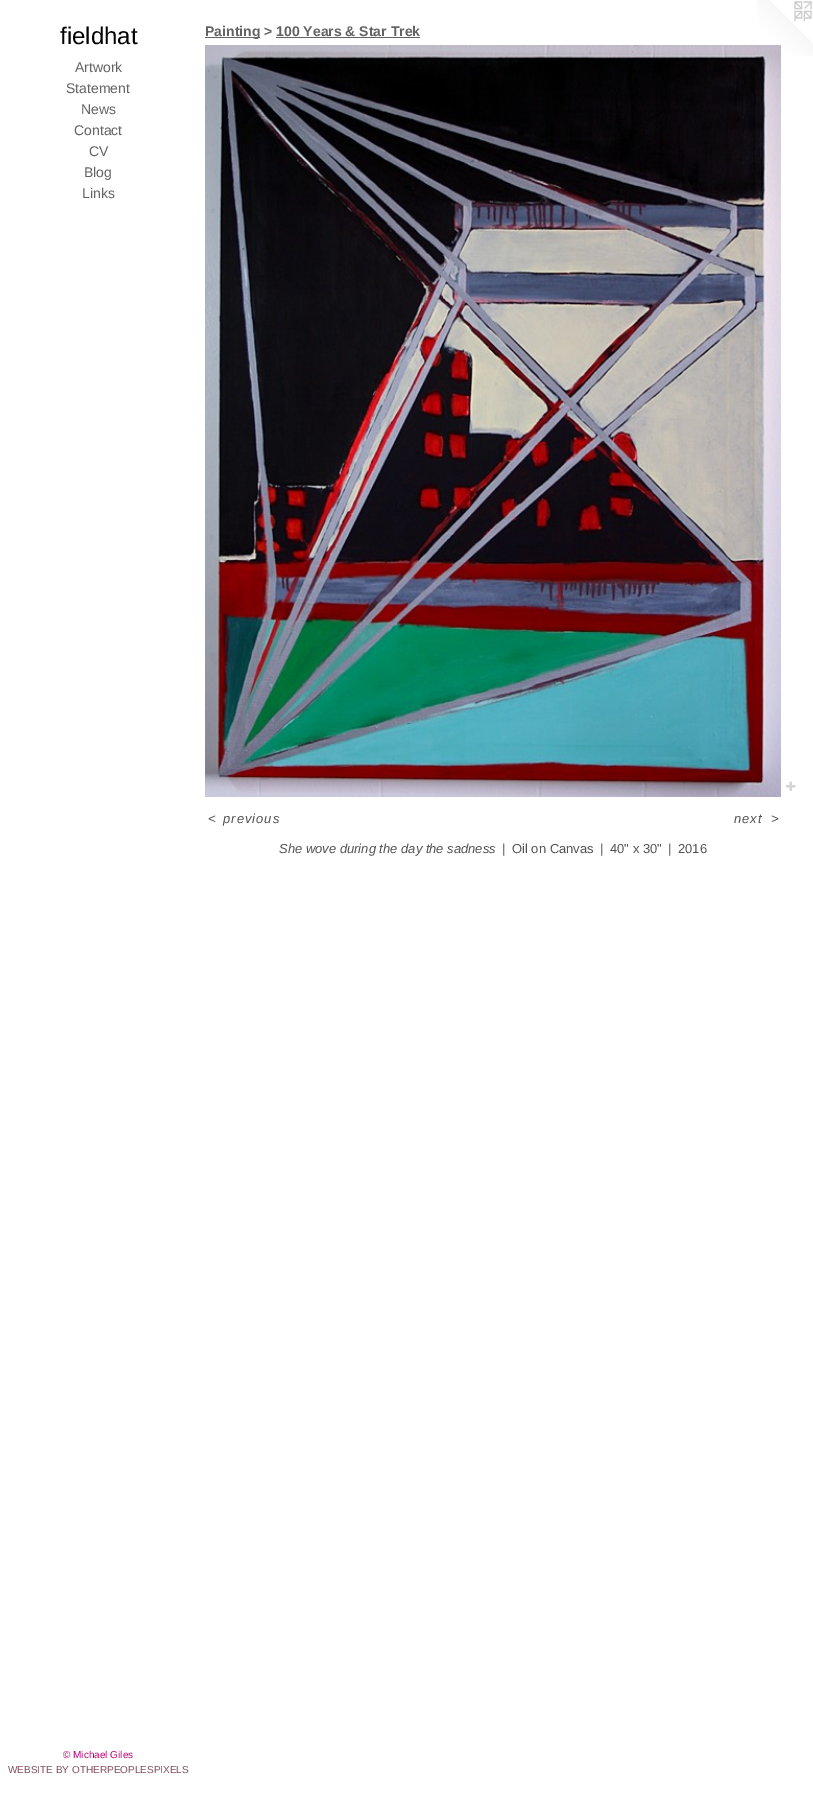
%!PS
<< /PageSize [813 1800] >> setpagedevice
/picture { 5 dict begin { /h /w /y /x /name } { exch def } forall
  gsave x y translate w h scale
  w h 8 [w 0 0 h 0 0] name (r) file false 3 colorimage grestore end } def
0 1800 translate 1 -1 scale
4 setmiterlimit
1 setgray
0 0 813 1800 rectfill
/LiberationSans-Regular [24 0 0 -24 0 0] selectfont
0 setgray
60 44 moveto (fieldhat) show
/LiberationSans-Regular [14 0 0 -14 0 0] selectfont
0.388 setgray
75 72 moveto (Artwork) show
66 93 moveto (Statement) show
81 114 moveto (News) show
74 135 moveto (Contact) show
89 156 moveto (CV) show
84 177 moveto (Blog) show
82 198 moveto (Links) show
/LiberationSans-Regular [10 0 0 -10 0 0] selectfont
0.722 0 0.447 setrgbcolor
63 1758 moveto (© Michael Giles) show
0.518 0.306 0.369 setrgbcolor
8 1773 moveto (WEBSITE BY OTHERPEOPLESPIXELS) show
0.388 setgray
205 37 55 1 rectfill
/LiberationSans-Bold [14 0 0 -14 0 0] selectfont
205 36 moveto (Painting > 100 Years & Star Trek) show
276 37 144 1 rectfill
(img3.rgb) 757 0 56 56 picture
(img1.rgb) 205 45 576 752 picture
(img2.rgb) 786 781 10 10 picture
/LiberationSans-Italic [13 0 0 -13 0 0] selectfont
0.322 setgray
208 823 moveto 1 0 (<) ashow
223 823 moveto 1 0 (previous) ashow
734 823 moveto 1 0 (next) ashow
771 823 moveto 1 0 (>) ashow
279 853 moveto (She wove during the day the sadness) show
/LiberationSans-Regular [13 0 0 -13 0 0] selectfont
502 853 moveto (|) show
512 853 moveto (Oil on Canvas) show
600 853 moveto (|) show
610 853 moveto (40" x 30") show
668 853 moveto (|) show
678 853 moveto (2016) show
showpage
